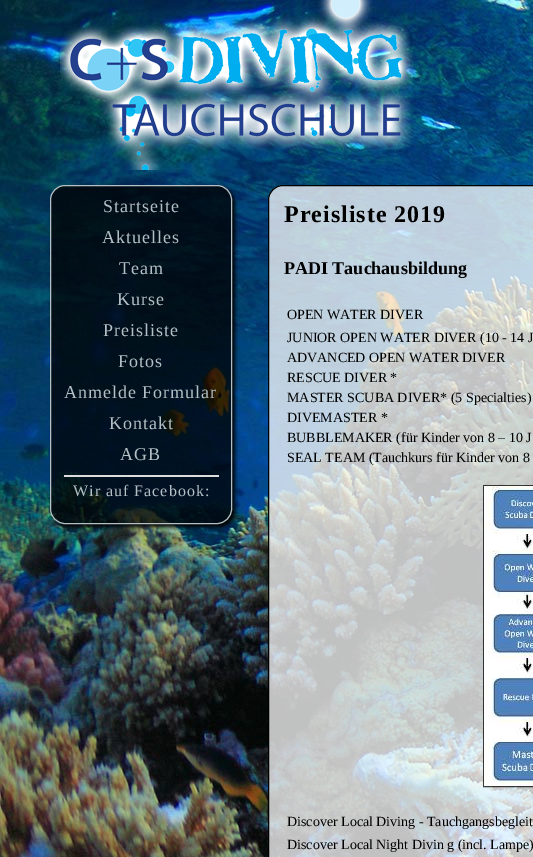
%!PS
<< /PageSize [533 857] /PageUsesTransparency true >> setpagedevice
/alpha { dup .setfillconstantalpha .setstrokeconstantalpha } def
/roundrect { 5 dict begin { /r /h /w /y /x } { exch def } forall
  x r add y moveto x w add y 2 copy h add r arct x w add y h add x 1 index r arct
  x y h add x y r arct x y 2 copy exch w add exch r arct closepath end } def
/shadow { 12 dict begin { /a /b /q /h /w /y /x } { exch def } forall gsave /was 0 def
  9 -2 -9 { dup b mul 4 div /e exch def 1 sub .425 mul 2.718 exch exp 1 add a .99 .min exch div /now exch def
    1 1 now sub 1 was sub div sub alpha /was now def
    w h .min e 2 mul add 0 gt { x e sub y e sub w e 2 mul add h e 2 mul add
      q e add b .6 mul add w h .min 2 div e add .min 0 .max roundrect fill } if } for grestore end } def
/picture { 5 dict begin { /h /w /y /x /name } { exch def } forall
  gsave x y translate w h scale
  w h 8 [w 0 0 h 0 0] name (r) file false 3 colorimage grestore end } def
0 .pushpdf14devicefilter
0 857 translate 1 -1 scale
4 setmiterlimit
1 setgray
0 0 533 857 rectfill
(img1.rgb) 0 0 533 857 picture
(img2.rgb) 60 0 354 170 picture
gsave
newpath 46 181 moveto 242 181 lineto 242 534 lineto 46 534 lineto closepath 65 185 moveto 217 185 lineto 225.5 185 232 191.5 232 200 curveto 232 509 lineto 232 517.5 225.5 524 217 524 curveto 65 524 lineto 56.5 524 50 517.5 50 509 curveto 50 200 lineto 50 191.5 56.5 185 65 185 curveto closepath eoclip newpath
0 setgray
53 188 182 339 15 2 1 shadow
grestore
0.74 alpha
0 setgray
50.5 185.5 181 338 14.5 roundrect fill
1 alpha
0.706 0.753 0.773 setrgbcolor
50.5 185.5 181 338 14.5 roundrect stroke
/LiberationSerif-Regular [18 0 0 -18 0 0] selectfont
103 212 moveto 1 0 (Startseite) ashow
102 243 moveto 1 0 (Aktuelles) ashow
119 274 moveto 1 0 (Team) ashow
117 305 moveto 1 0 (Kurse) ashow
103 336 moveto 1 0 (Preisliste) ashow
118 367 moveto 1 0 (Fotos) ashow
64 398 moveto 1 0 (Anmelde Formular) ashow
109 429 moveto 1 0 (Kontakt) ashow
120 460 moveto 1 0 (AGB) ashow
0.867 setgray
64 475 155 2 rectfill
/LiberationSerif-Regular [16 0 0 -16 0 0] selectfont
0.706 0.753 0.773 setrgbcolor
73 496 moveto 1 0 (Wir auf Facebook:) ashow
0.75 alpha
1 setgray
268.5 185.5 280 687 14.5 roundrect fill
1 alpha
0 setgray
268.5 185.5 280 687 14.5 roundrect stroke
/LiberationSerif-Bold [24 0 0 -24 0 0] selectfont
284 222 moveto 1 0 (Preisliste 2019) ashow
/LiberationSerif-Bold [18 0 0 -18 0 0] selectfont
284 274 moveto (PADI Tauchausbildung) show
/LiberationSerif-Regular [14 0 0 -14 0 0] selectfont
287 319 moveto (OPEN WATER DIVER) show
287 342 moveto (JUNIOR OPEN WATER DIVER \(10 - 14 J) show
287 362 moveto (ADVANCED OPEN WATER DIVER) show
287 382 moveto (RESCUE DIVER *) show
287 402 moveto (MASTER SCUBA DIVER* \(5 Specialties\)) show
287 422 moveto (DIVEMASTER *) show
287 442 moveto (BUBBLEMAKER \(für Kinder von 8 – 10 J) show
287 462 moveto (SEAL TEAM \(Tauchkurs für Kinder von 8) show
0.75 alpha
483.5 485.5 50 301 rectstroke
1 alpha
(img3.rgb) 484 486 49 300 picture
287 826 moveto (Discover Local Diving - Tauchgangsbegleit) show
287 849 moveto (Discover Local Night Divin g \(incl. Lampe\)) show
.poppdf14devicefilter showpage
